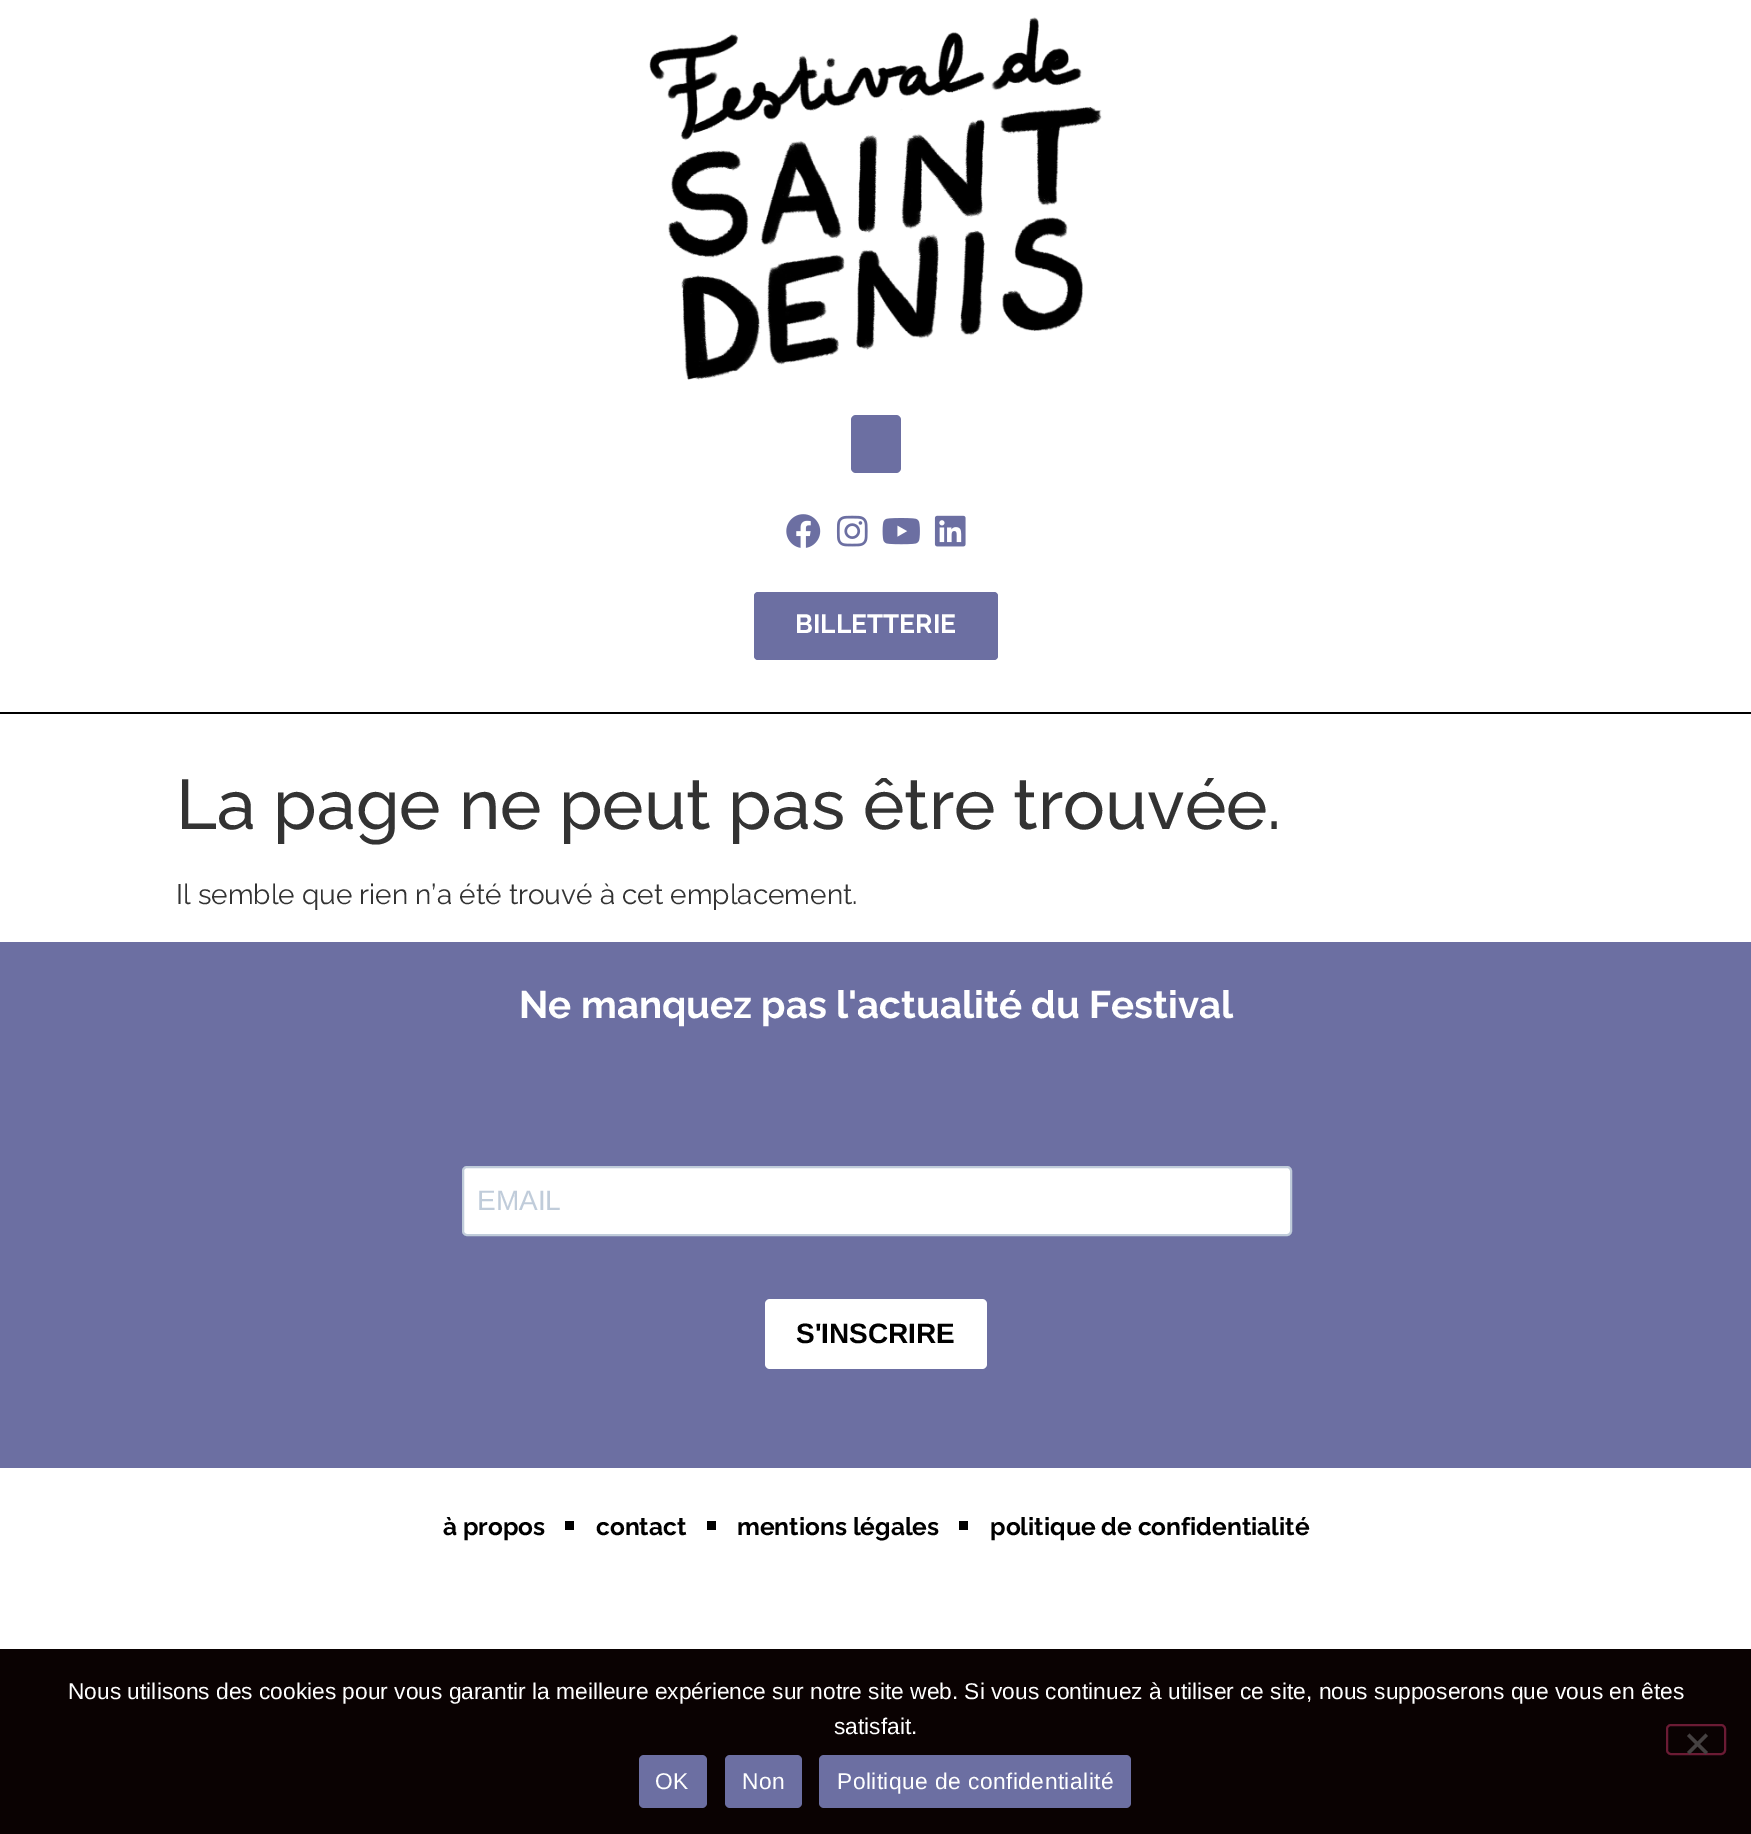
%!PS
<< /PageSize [1751 1834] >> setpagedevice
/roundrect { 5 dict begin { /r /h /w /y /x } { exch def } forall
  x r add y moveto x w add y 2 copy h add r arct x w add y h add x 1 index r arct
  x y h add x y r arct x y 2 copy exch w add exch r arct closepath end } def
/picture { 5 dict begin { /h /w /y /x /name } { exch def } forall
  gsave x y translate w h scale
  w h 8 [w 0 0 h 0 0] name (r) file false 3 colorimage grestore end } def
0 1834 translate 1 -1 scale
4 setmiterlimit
1 setgray
0 0 1751 1834 rectfill
(img1.rgb) 649 17 453 363 picture
0.424 0.435 0.635 setrgbcolor
851 415 50 58 5 roundrect fill
(img2.rgb) 786 514 35 34 picture
(img3.rgb) 836 515 32 32 picture
(img4.rgb) 882 518 38 27 picture
(img5.rgb) 934 515 32 32 picture
754 592 244 68 4 roundrect fill
/Raleway-Bold [26.25 0 0 -26.25 0 0] selectfont
1 setgray
795 633 moveto (BILLETTERIE) show
0 setgray
0 712 1751 2 rectfill
/Raleway-Medium [70 0 0 -70 0 0] selectfont
0.2 setgray
176 829 moveto (La page ne peut pas être trouvée.) show
/Raleway-Regular [28 0 0 -28 0 0] selectfont
176 904 moveto (Il semble que rien n’a été trouvé à cet emplacement.) show
0.424 0.435 0.635 setrgbcolor
0 942 1751 526 rectfill
/Raleway-Bold [38.5 0 0 -38.5 0 0] selectfont
1 setgray
519 1018 moveto (Ne manquez pas l'actualité du Festival) show
463 1167 828 68 4 roundrect gsave fill grestore
0.753 0.8 0.855 setrgbcolor
2 setlinewidth
stroke
/LiberationSans-Regular [28 0 0 -28 0 0] selectfont
477 1210 moveto (EMAIL) show
1 setgray
765 1299 222 70 5 roundrect fill
/LiberationSans-Bold [28 0 0 -28 0 0] selectfont
0 setgray
796 1343 moveto (S'INSCRIRE) show
/Raleway-Bold [24.5 0 0 -24.5 0 0] selectfont
443 1535 moveto (à propos) show
565 1521 9 9 rectfill
596 1535 moveto (contact) show
707 1521 9 9 rectfill
737 1535 moveto (mentions légales) show
959 1521 9 9 rectfill
990 1535 moveto (politique de confidentialité) show
0.039 0.008 0.008 setrgbcolor
0 1649 1751 185 rectfill
/LiberationSans-Regular [22.75 0 0 -22.75 0 0] selectfont
1 setgray
68 1699 moveto (Nous utilisons des cookies pour vous garantir la meilleure expérience sur notre site web. Si vous continuez à utiliser ce site, nous supposerons que vous en êtes) show
834 1734 moveto (satisfait.) show
0.42 0.106 0.204 setrgbcolor
1667 1725 58 29 4 roundrect stroke
0.271 0.255 0.255 setrgbcolor
newpath 1705.5 1733.5 moveto 1708 1736 lineto 1689.5 1754.5 lineto 1687 1752 lineto closepath fill
newpath 1687 1736 moveto 1689.5 1733.5 lineto 1708 1752 lineto 1705.5 1754.5 lineto closepath fill
0.424 0.435 0.635 setrgbcolor
639 1755 68 53 5 roundrect fill
1 setgray
655 1789 moveto 0.45 0 (OK) ashow
0.424 0.435 0.635 setrgbcolor
725 1755 77 53 5 roundrect fill
1 setgray
742 1789 moveto 0.45 0 (Non) ashow
0.424 0.435 0.635 setrgbcolor
819 1755 312 53 5 roundrect fill
1 setgray
837 1789 moveto 0.45 0 (Politique de confidentialité) ashow
showpage
